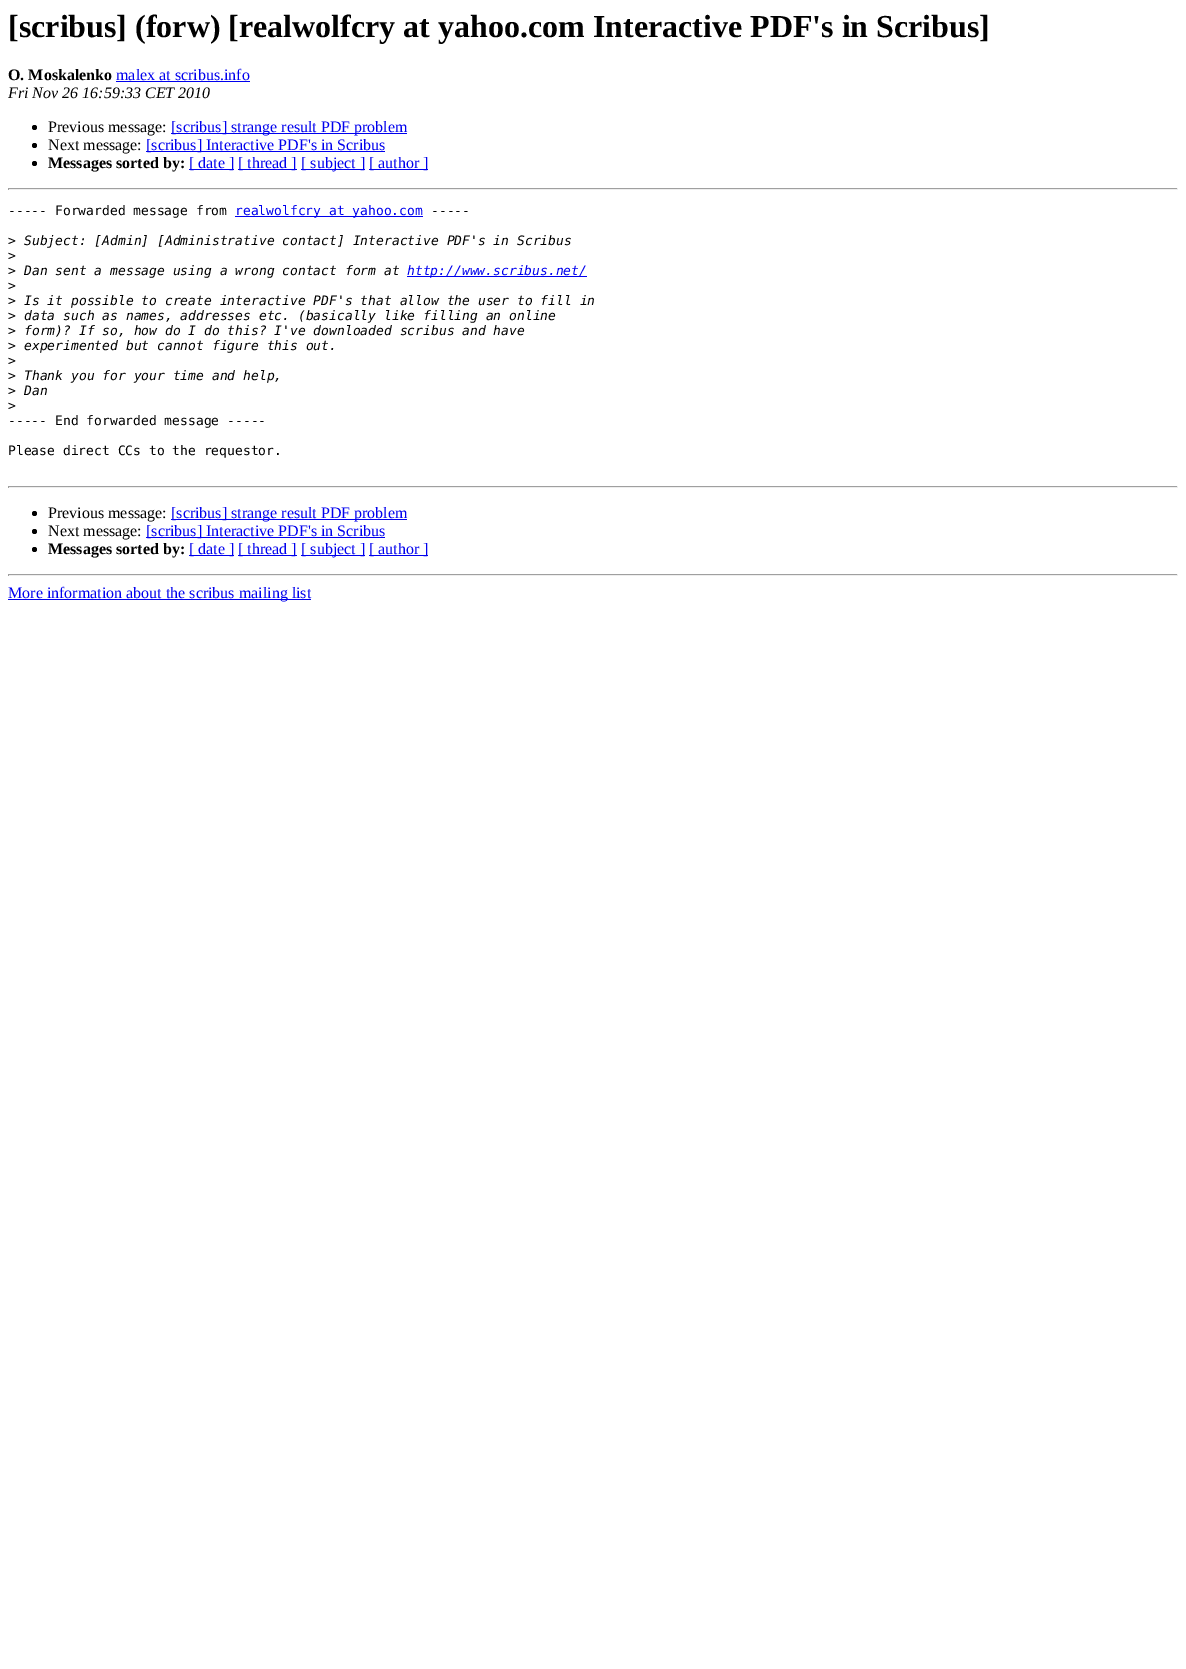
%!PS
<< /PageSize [1186 1669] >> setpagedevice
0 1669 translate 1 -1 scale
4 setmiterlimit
1 setgray
0 0 1186 1669 rectfill
/LiberationSerif-Bold [32 0 0 -32 0 0] selectfont
0 setgray
8 37 moveto ([scribus] \(forw\) [realwolfcry at yahoo.com Interactive PDF's in Scribus]) show
/LiberationSerif-Bold [16 0 0 -16 0 0] selectfont
8 80 moveto (O. Moskalenko) show
/LiberationSerif-Regular [16 0 0 -16 0 0] selectfont
0 0 0.933 setrgbcolor
116 80 moveto (malex at scribus.info) show
116 81 134 1 rectfill
/LiberationSerif-Italic [16 0 0 -16 0 0] selectfont
0 setgray
8 98 moveto (Fri Nov 26 16:59:33 CET 2010) show
newpath 34.5 127.5 2.5 0 360 arc closepath fill
/LiberationSerif-Regular [16 0 0 -16 0 0] selectfont
48 132 moveto (Previous message:) show
0 0 0.933 setrgbcolor
171 133 236 1 rectfill
171 132 moveto ([scribus] strange result PDF problem) show
0 setgray
newpath 34.5 145.5 2.5 0 360 arc closepath fill
48 150 moveto (Next message:) show
0 0 0.933 setrgbcolor
146 151 239 1 rectfill
146 150 moveto ([scribus] Interactive PDF's in Scribus) show
0 setgray
newpath 34.5 163.5 2.5 0 360 arc closepath fill
/LiberationSerif-Bold [16 0 0 -16 0 0] selectfont
48 168 moveto (Messages sorted by:) show
0 0 0.933 setrgbcolor
189 169 45 1 rectfill
/LiberationSerif-Regular [16 0 0 -16 0 0] selectfont
189 168 moveto ([ date ]) show
238 169 59 1 rectfill
238 168 moveto ([ thread ]) show
301 169 64 1 rectfill
301 168 moveto ([ subject ]) show
369 169 59 1 rectfill
369 168 moveto ([ author ]) show
0.624 setgray
8 188 1170 1 rectfill
0.933 setgray
1177 188 1 2 rectfill
8 189 1170 1 rectfill
0.624 setgray
8 188 1 2 rectfill
/DejaVuSansMono-Regular [13 0 0 -13 0 0] selectfont
0 setgray
8 215 moveto (----- Forwarded message from) show
0 0 0.933 setrgbcolor
235 216 188 1 rectfill
235 215 moveto (realwolfcry at yahoo.com) show
0 setgray
431 215 moveto (-----) show
8 245 moveto (>) show
/DejaVuSansMono-Italic [13 0 0 -13 0 0] selectfont
24 245 moveto (Subject: [Admin] [Administrative contact] Interactive PDF's in Scribus) show
/DejaVuSansMono-Regular [13 0 0 -13 0 0] selectfont
8 260 moveto (>) show
8 275 moveto (>) show
/DejaVuSansMono-Italic [13 0 0 -13 0 0] selectfont
24 275 moveto (Dan sent a message using a wrong contact form at) show
0 0 0.933 setrgbcolor
407 276 180 1 rectfill
407 275 moveto (http://www.scribus.net/) show
/DejaVuSansMono-Regular [13 0 0 -13 0 0] selectfont
0 setgray
8 290 moveto (>) show
8 305 moveto (>) show
/DejaVuSansMono-Italic [13 0 0 -13 0 0] selectfont
24 305 moveto (Is it possible to create interactive PDF's that allow the user to fill in) show
/DejaVuSansMono-Regular [13 0 0 -13 0 0] selectfont
8 320 moveto (>) show
/DejaVuSansMono-Italic [13 0 0 -13 0 0] selectfont
24 320 moveto (data such as names, addresses etc. \(basically like filling an online) show
/DejaVuSansMono-Regular [13 0 0 -13 0 0] selectfont
8 335 moveto (>) show
/DejaVuSansMono-Italic [13 0 0 -13 0 0] selectfont
24 335 moveto (form\)? If so, how do I do this? I've downloaded scribus and have) show
/DejaVuSansMono-Regular [13 0 0 -13 0 0] selectfont
8 350 moveto (>) show
/DejaVuSansMono-Italic [13 0 0 -13 0 0] selectfont
24 350 moveto (experimented but cannot figure this out.) show
/DejaVuSansMono-Regular [13 0 0 -13 0 0] selectfont
8 365 moveto (>) show
8 380 moveto (>) show
/DejaVuSansMono-Italic [13 0 0 -13 0 0] selectfont
24 380 moveto (Thank you for your time and help,) show
/DejaVuSansMono-Regular [13 0 0 -13 0 0] selectfont
8 395 moveto (>) show
/DejaVuSansMono-Italic [13 0 0 -13 0 0] selectfont
24 395 moveto (Dan) show
/DejaVuSansMono-Regular [13 0 0 -13 0 0] selectfont
8 410 moveto (>) show
8 425 moveto (----- End forwarded message -----) show
8 455 moveto (Please direct CCs to the requestor.) show
0.624 setgray
8 486 1170 1 rectfill
0.933 setgray
1177 486 1 2 rectfill
8 487 1170 1 rectfill
0.624 setgray
8 486 1 2 rectfill
0 setgray
newpath 34.5 513.5 2.5 0 360 arc closepath fill
/LiberationSerif-Regular [16 0 0 -16 0 0] selectfont
48 518 moveto (Previous message:) show
0 0 0.933 setrgbcolor
171 519 236 1 rectfill
171 518 moveto ([scribus] strange result PDF problem) show
0 setgray
newpath 34.5 531.5 2.5 0 360 arc closepath fill
48 536 moveto (Next message:) show
0 0 0.933 setrgbcolor
146 537 239 1 rectfill
146 536 moveto ([scribus] Interactive PDF's in Scribus) show
0 setgray
newpath 34.5 549.5 2.5 0 360 arc closepath fill
/LiberationSerif-Bold [16 0 0 -16 0 0] selectfont
48 554 moveto (Messages sorted by:) show
0 0 0.933 setrgbcolor
189 555 45 1 rectfill
/LiberationSerif-Regular [16 0 0 -16 0 0] selectfont
189 554 moveto ([ date ]) show
238 555 59 1 rectfill
238 554 moveto ([ thread ]) show
301 555 64 1 rectfill
301 554 moveto ([ subject ]) show
369 555 59 1 rectfill
369 554 moveto ([ author ]) show
0.624 setgray
8 574 1170 1 rectfill
0.933 setgray
1177 574 1 2 rectfill
8 575 1170 1 rectfill
0.624 setgray
8 574 1 2 rectfill
0 0 0.933 setrgbcolor
8 599 303 1 rectfill
8 598 moveto (More information about the scribus mailing list) show
showpage
